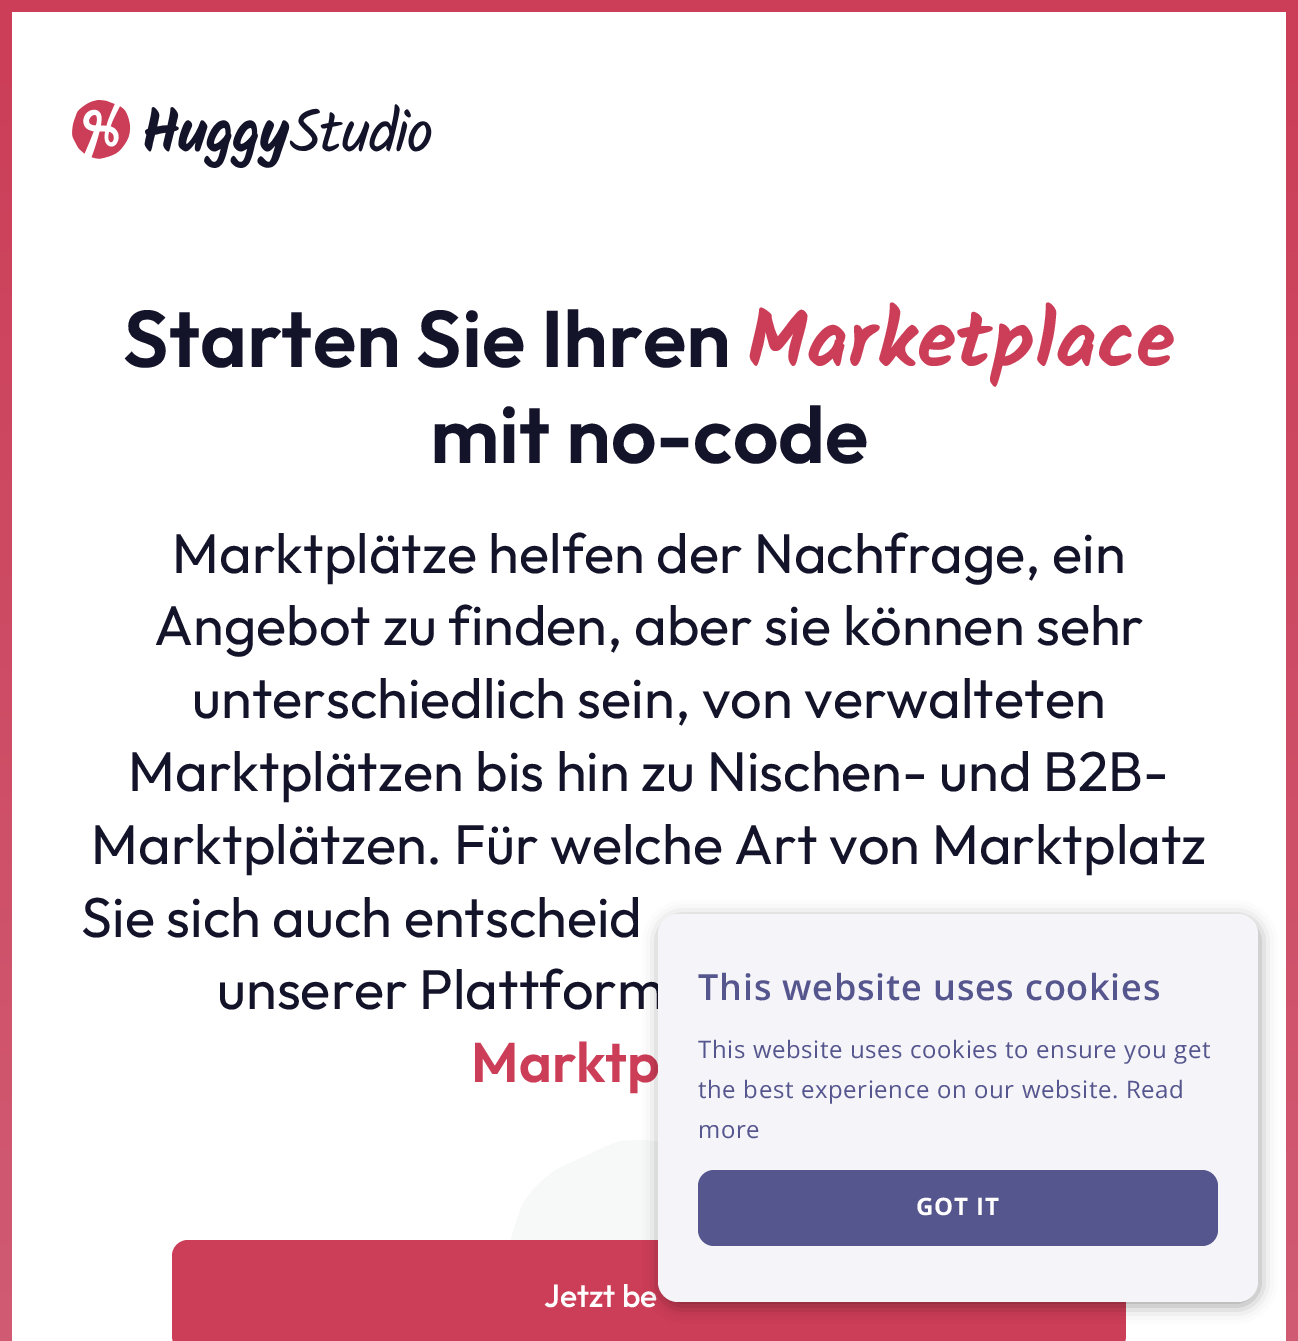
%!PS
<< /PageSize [1298 1341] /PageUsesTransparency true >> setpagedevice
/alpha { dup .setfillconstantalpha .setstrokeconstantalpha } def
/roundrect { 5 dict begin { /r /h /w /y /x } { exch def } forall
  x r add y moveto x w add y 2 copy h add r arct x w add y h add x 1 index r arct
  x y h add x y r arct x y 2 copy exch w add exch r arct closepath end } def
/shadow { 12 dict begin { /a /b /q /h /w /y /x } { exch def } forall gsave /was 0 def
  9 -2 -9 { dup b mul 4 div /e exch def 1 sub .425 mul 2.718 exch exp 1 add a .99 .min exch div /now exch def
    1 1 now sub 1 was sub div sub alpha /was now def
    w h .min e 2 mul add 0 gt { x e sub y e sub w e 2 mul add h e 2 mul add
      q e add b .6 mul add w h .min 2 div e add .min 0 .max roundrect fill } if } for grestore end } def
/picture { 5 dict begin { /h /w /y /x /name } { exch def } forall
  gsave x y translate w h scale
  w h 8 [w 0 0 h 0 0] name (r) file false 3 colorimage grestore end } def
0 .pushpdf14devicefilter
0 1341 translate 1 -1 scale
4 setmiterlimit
1 setgray
0 0 1298 1341 rectfill
gsave newpath 0 0 moveto 1298 0 lineto 1298 1341 lineto 0 1341 lineto closepath clip newpath
<< /ShadingType 2 /ColorSpace /DeviceRGB /Coords [649 0 649 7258] /Extend [true true] /Function << /FunctionType 2 /Domain [0 1] /C0 [0.8 0.239 0.341] /C1 [0.886 0.886 0.933] /N 1 >> >> shfill grestore
12 12 1274 1329 rectfill
(img1.rgb) 72 100 360 68 picture
/Outfit-SemiBold [80 0 0 -80 0 0] selectfont
0.075 0.075 0.165 setrgbcolor
123 367 moveto (Starten Sie Ihren) show
/Kalam-Bold [80 0 0 -80 0 0] selectfont
0.8 0.239 0.341 setrgbcolor
747 367 moveto (Marketplace) show
/Outfit-SemiBold [80 0 0 -80 0 0] selectfont
0.075 0.075 0.165 setrgbcolor
430 463 moveto (mit no-code) show
/Outfit-Regular [56 0 0 -56 0 0] selectfont
172 573 moveto (Marktplätze helfen der Nachfrage, ein) show
154 645 moveto (Angebot zu finden, aber sie können sehr) show
192 718 moveto (unterschiedlich sein, von verwalteten) show
128 791 moveto (Marktplätzen bis hin zu Nischen- und B2B-) show
91 864 moveto (Marktplätzen. Für welche Art von Marktplatz) show
81 937 moveto (Sie sich auch entscheid) show
217 1009 moveto (unserer Plattform) show
/Outfit-SemiBold [56 0 0 -56 0 0] selectfont
0.8 0.239 0.341 setrgbcolor
471 1082 moveto (Marktp) show
(img2.rgb) 510 1140 148 100 picture
172 1240 954 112 16 roundrect fill
/Outfit-Medium [32 0 0 -32 0 0] selectfont
1 setgray
544 1307 moveto (Jetzt be) show
0 setgray
660 918 600 388 20 8 0.35 shadow
0.961 0.961 0.976 setrgbcolor
658 914 600 388 20 roundrect fill
/OpenSans-SemiBold [36 0 0 -36 0 0] selectfont
0.337 0.337 0.561 setrgbcolor
698 1000 moveto 0.8 0 (This website uses cookies) ashow
/OpenSans-Regular [24 0 0 -24 0 0] selectfont
698 1058 moveto 0.6 0 (This website uses cookies to ensure you get) ashow
698 1098 moveto 0.6 0 (the best experience on our website. Read) ashow
698 1138 moveto 0.6 0 (more) ashow
698 1170 520 76 16 roundrect fill
/OpenSans-Bold [24 0 0 -24 0 0] selectfont
1 setgray
916 1215 moveto 0.8 0 (GOT IT) ashow
.poppdf14devicefilter showpage
